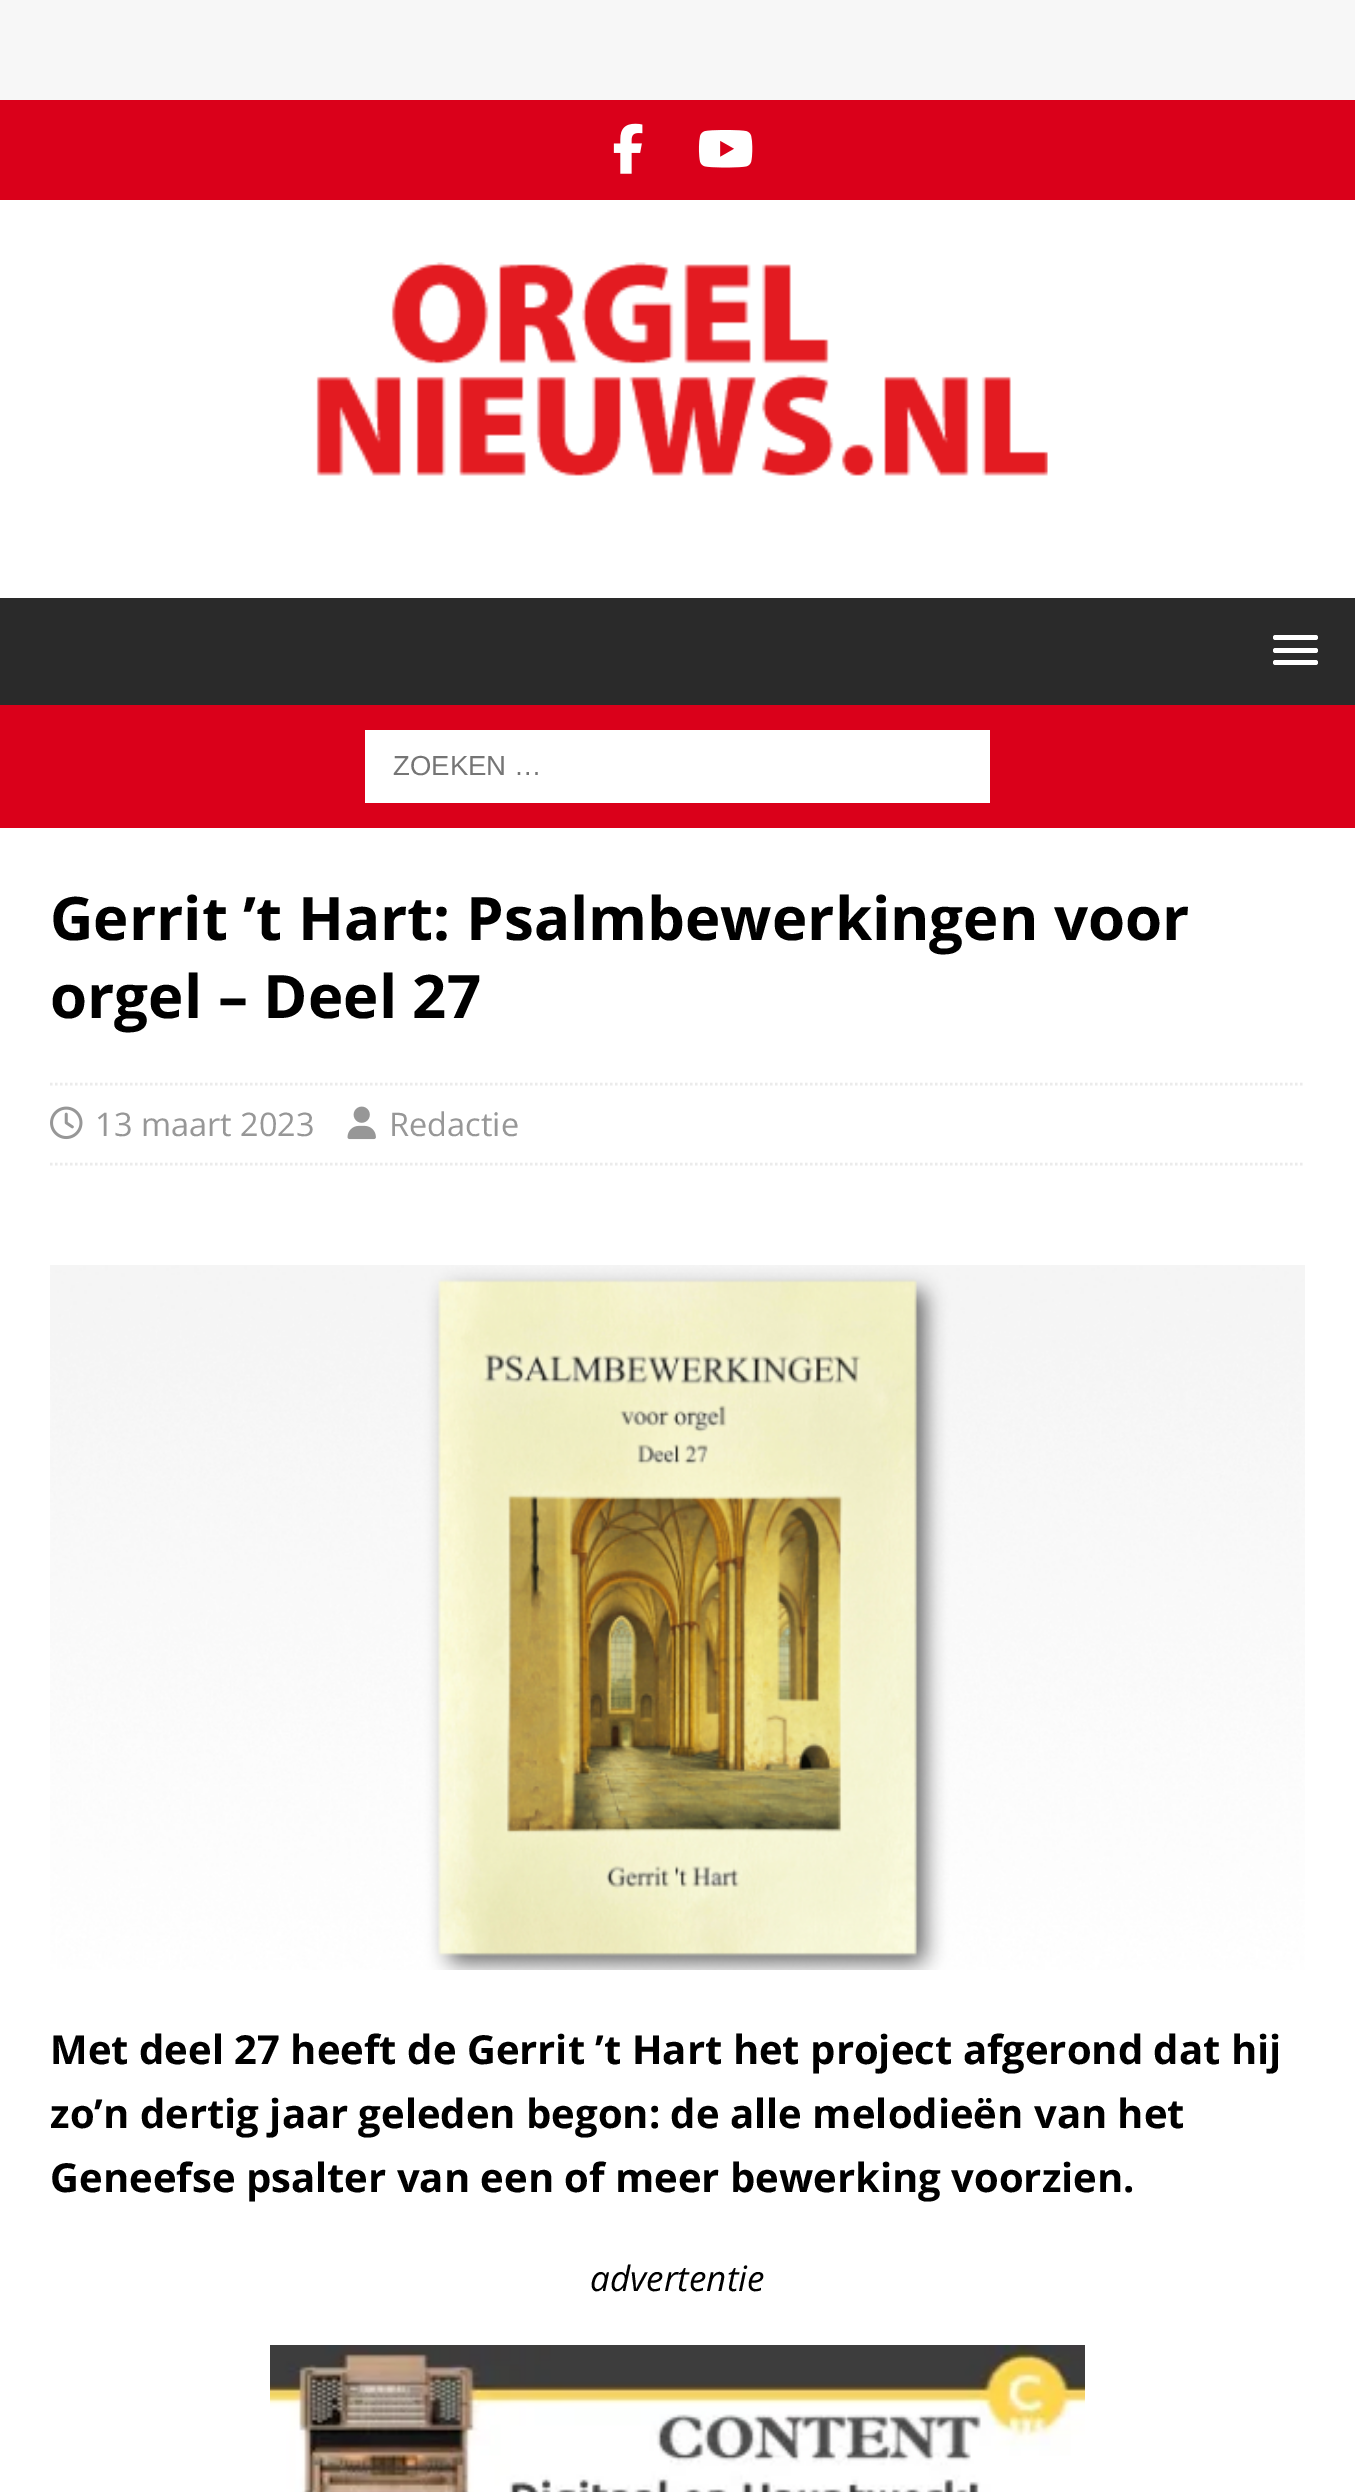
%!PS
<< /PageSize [1355 2492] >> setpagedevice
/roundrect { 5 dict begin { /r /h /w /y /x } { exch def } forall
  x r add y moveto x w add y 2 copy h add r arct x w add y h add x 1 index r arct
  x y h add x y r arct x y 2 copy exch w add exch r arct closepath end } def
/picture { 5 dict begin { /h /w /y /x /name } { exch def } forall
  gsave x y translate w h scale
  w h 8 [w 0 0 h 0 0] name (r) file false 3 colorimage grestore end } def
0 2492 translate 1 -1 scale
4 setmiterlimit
0.969 setgray
0 0 1355 2492 rectfill
0.855 0 0.102 setrgbcolor
0 100 1355 100 rectfill
(img1.rgb) 613 123 30 51 picture
(img2.rgb) 698 130 55 38 picture
1 setgray
0 200 1355 398 rectfill
(img3.rgb) 316 262 732 214 picture
0.165 setgray
0 598 1355 107 rectfill
1 setgray
1273 635 45 5 2.5 roundrect fill
1273 648 45 5 2.5 roundrect fill
1273 660 45 5 2.5 roundrect fill
0.855 0 0.102 setrgbcolor
0 705 1355 123 rectfill
1 setgray
365 730 625 73 rectfill
/LiberationSans-Regular [27.5 0 0 -27.5 0 0] selectfont
0.459 setgray
393 775 moveto (ZOEKEN …) show
1 setgray
0 828 1355 1664 rectfill
/OpenSans-Bold [60 0 0 -60 0 0] selectfont
0 setgray
50 940 moveto (Gerrit ’t Hart: Psalmbewerkingen voor) show
50 1018 moveto (orgel – Deel 27) show
0.922 setgray
2.5 setlinewidth
[2.5 2.5] 0 setdash
newpath 50 1084 moveto 1305 1084 lineto stroke
newpath 50 1164 moveto 1305 1164 lineto stroke
(img4.rgb) 50 1106 33 34 picture
/OpenSans-Regular [32.5 0 0 -32.5 0 0] selectfont
0.592 setgray
95 1136 moveto (13 maart 2023) show
(img5.rgb) 347 1106 29 34 picture
389 1136 moveto (Redactie) show
(img6.rgb) 50 1265 1255 705 picture
/OpenSans-Bold [40 0 0 -40 0 0] selectfont
0 setgray
50 2064 moveto (Met deel 27 heeft de Gerrit ’t Hart het project afgerond dat hij) show
50 2128 moveto (zo’n dertig jaar geleden begon: de alle melodieën van het) show
50 2192 moveto (Geneefse psalter van een of meer bewerking voorzien.) show
/OpenSans-Italic [35 0 0 -35 0 0] selectfont
590 2291 moveto (advertentie) show
(img7.rgb) 270 2345 815 147 picture
showpage
